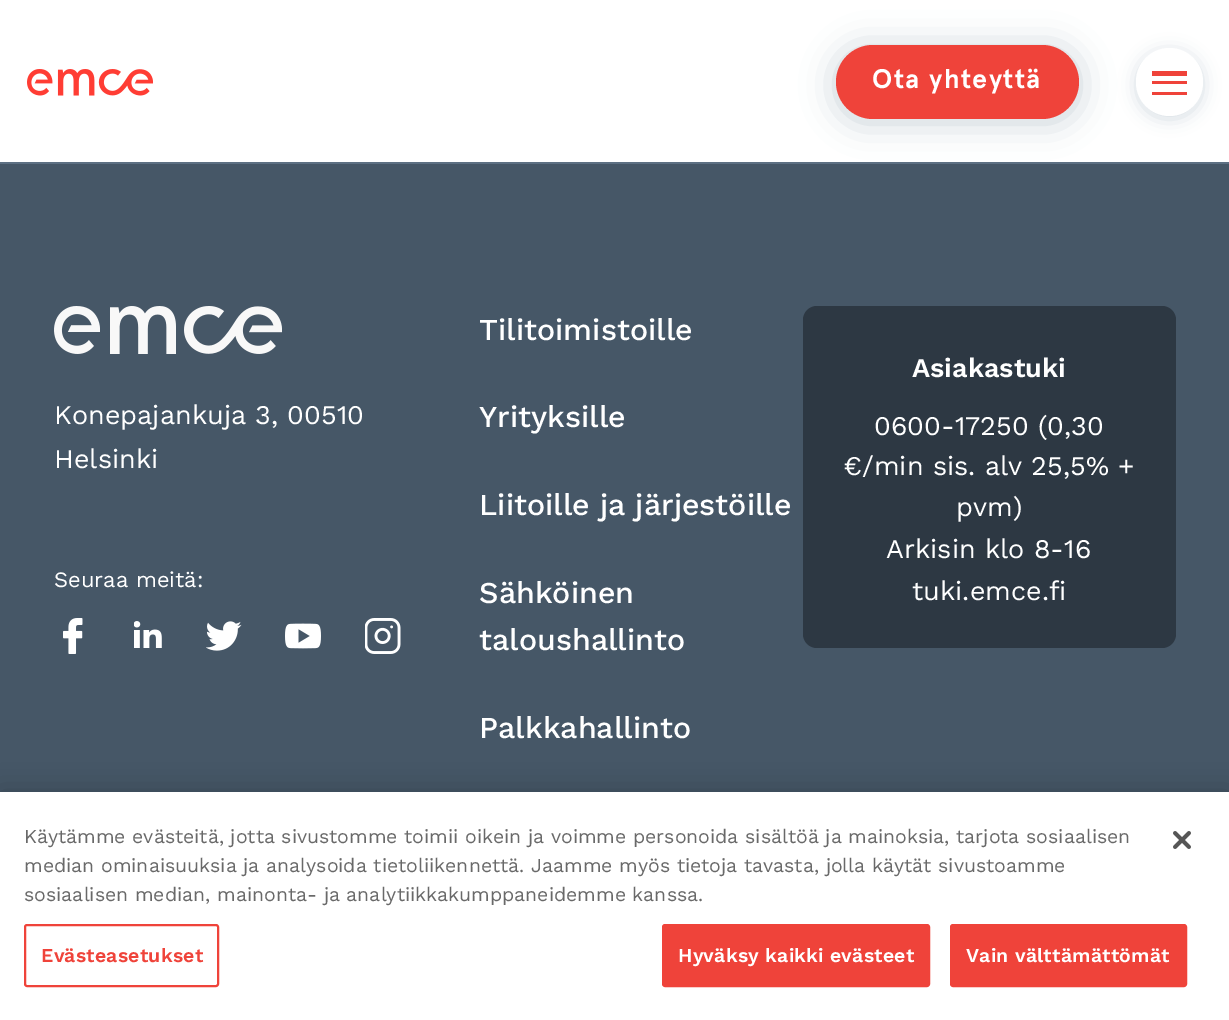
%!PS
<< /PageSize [1229 1020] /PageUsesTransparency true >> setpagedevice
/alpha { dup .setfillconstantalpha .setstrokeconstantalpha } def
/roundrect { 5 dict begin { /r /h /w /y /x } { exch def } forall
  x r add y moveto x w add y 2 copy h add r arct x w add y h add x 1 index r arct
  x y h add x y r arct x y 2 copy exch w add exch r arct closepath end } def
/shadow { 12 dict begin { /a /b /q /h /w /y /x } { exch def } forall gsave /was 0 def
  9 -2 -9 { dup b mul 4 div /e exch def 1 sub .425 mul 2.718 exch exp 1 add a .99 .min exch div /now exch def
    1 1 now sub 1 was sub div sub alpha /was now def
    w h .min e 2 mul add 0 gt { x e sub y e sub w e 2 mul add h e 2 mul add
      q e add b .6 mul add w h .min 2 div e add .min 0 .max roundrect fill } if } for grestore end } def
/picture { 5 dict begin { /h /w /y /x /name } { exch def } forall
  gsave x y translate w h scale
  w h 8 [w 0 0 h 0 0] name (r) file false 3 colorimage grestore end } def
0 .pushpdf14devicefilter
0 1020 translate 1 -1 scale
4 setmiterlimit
0.275 0.341 0.404 setrgbcolor
0 0 1229 1020 rectfill
0.365 0.439 0.514 setrgbcolor
0 162 1229 2 rectfill
1 setgray
0 0 1229 162 rectfill
(img1.rgb) 27 69 126 27 picture
0.451 0.537 0.62 setrgbcolor
836 48 243 74 37 17 0.4 shadow
0.937 0.263 0.227 setrgbcolor
836 45 243 74 37 roundrect fill
/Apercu-Bold [27 0 0 -27 0 0] selectfont
1 setgray
872 88 moveto 1.4 0 (Ota yhteyttä) ashow
0.451 0.537 0.62 setrgbcolor
1136 51 67 68 33.5 8.5 0.3 shadow
1 setgray
1136 48 67 68 33.5 roundrect fill
0.937 0.263 0.227 setrgbcolor
1152 92 35 3 rectfill
1152 71 35 5 rectfill
1152 81 35 3 rectfill
(img2.rgb) 54 306 228 48 picture
/WorkSans-Regular [27 0 0 -27 0 0] selectfont
1 setgray
54 424 moveto (Konepajankuja 3, 00510) show
54 468 moveto (Helsinki) show
/WorkSans-Regular [22 0 0 -22 0 0] selectfont
54 587 moveto (Seuraa meitä:) show
(img3.rgb) 63 618 20 36 picture
(img4.rgb) 134 621 28 27 picture
(img5.rgb) 206 621 36 30 picture
(img6.rgb) 285 623 36 26 picture
(img7.rgb) 365 618 36 36 picture
/WorkSans-Medium [30.4 0 0 -30.4 0 0] selectfont
479 340 moveto (Tilitoimistoille) show
479 427 moveto (Yrityksille) show
479 515 moveto (Liitoille ja järjestöille) show
479 603 moveto (Sähköinen) show
479 650 moveto (taloushallinto) show
479 738 moveto (Palkkahallinto) show
0.176 0.22 0.263 setrgbcolor
803 306 373 342 14 roundrect fill
/WorkSans-SemiBold [27 0 0 -27 0 0] selectfont
1 setgray
912 377 moveto (Asiakastuki) show
/WorkSans-Regular [27 0 0 -27 0 0] selectfont
874 435 moveto (0600-17250 \(0,30) show
843 475 moveto (€/min sis. alv 25,5% +) show
956 516 moveto (pvm\)) show
886 558 moveto (Arkisin klo 8-16) show
912 600 moveto (tuki.emce.fi) show
0 setgray
0 792 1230 228 0 13.5 0.2 shadow
1 setgray
0 792 1229 228 rectfill
/WorkSans-Regular [19.5 0 0 -19.5 0 0] selectfont
0.412 setgray
24 843 moveto (Käytämme evästeitä, jotta sivustomme toimii oikein ja voimme personoida sisältöä ja mainoksia, tarjota sosiaalisen) show
24 872 moveto (median ominaisuuksia ja analysoida tietoliikennettä. Jaamme myös tietoja tavasta, jolla käytät sivustoamme) show
24 901 moveto (sosiaalisen median, mainonta- ja analytiikkakumppaneidemme kanssa.) show
0.937 0.263 0.227 setrgbcolor
2 setlinewidth
25 925 193 61 2 roundrect stroke
/WorkSans-SemiBold [19.5 0 0 -19.5 0 0] selectfont
41 962 moveto 0.2 0 (Evästeasetukset) ashow
663 925 266 61 2 roundrect gsave fill grestore
stroke
1 setgray
678 962 moveto 0.2 0 (Hyväksy kaikki evästeet) ashow
0.937 0.263 0.227 setrgbcolor
951 925 235 61 2 roundrect gsave fill grestore
stroke
1 setgray
966 962 moveto 0.2 0 (Vain välttämättömät) ashow
(img8.rgb) 1173 831 18 18 picture
.poppdf14devicefilter showpage
